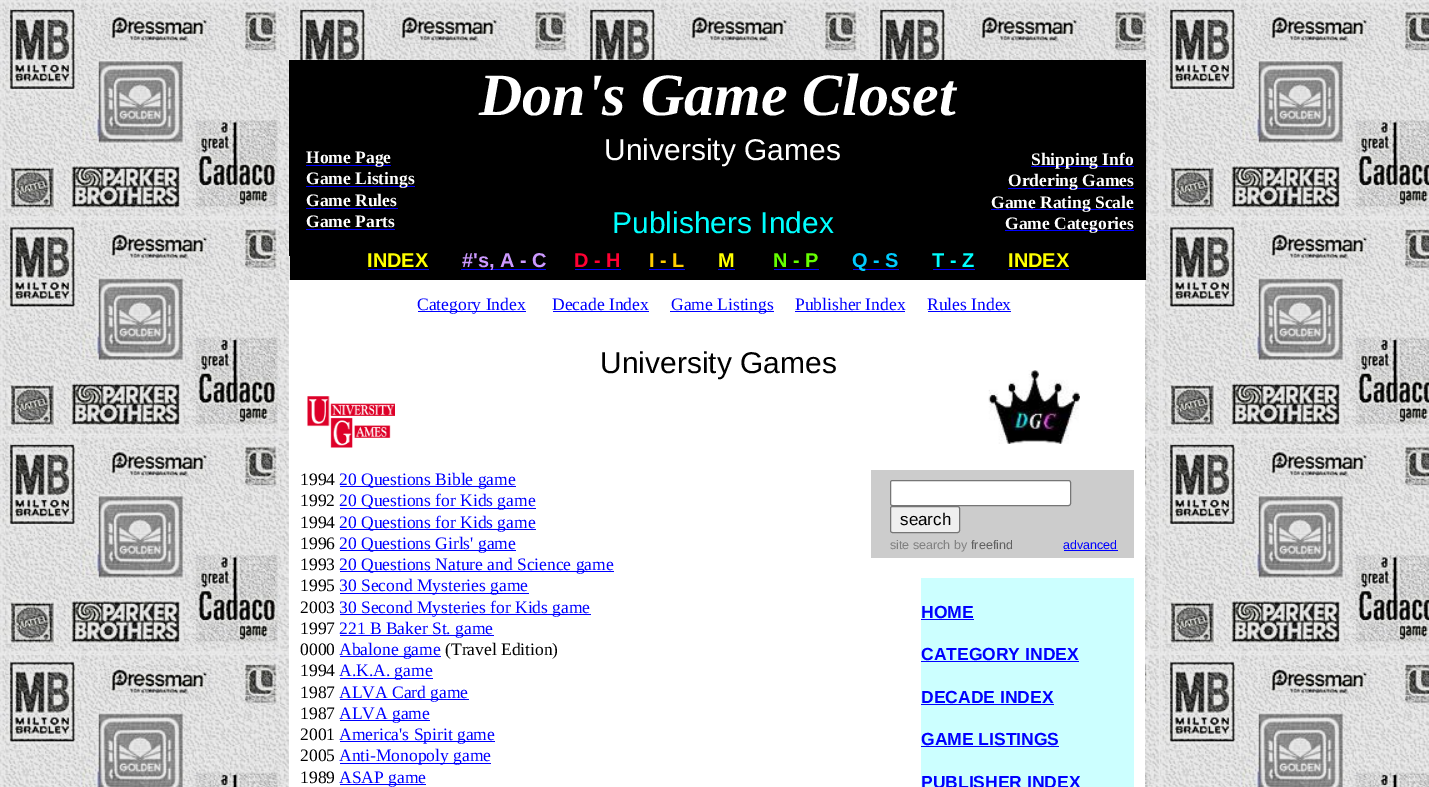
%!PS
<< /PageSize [1429 787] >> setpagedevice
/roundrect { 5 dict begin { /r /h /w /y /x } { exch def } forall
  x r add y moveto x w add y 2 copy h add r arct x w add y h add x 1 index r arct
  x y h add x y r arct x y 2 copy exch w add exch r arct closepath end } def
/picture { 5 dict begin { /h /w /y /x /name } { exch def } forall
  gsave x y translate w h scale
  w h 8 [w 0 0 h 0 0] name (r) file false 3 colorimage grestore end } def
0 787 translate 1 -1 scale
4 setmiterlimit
1 setgray
0 0 1429 787 rectfill
(img1.rgb) 0 0 1429 787 picture
0 setgray
289 60 857 196 rectfill
/LiberationSerif-BoldItalic [60 0 0 -60 0 0] selectfont
1 setgray
479 115 moveto (Don's Game Closet) show
0 0 1 setrgbcolor
306 165 85 1 rectfill
/LiberationSerif-Bold [17.5 0 0 -17.5 0 0] selectfont
1 setgray
306 163 moveto (Home Page) show
0 0 1 setrgbcolor
306 186 109 1 rectfill
1 setgray
306 184 moveto (Game Listings) show
306 206 moveto (Game Rules) show
0 0 1 setrgbcolor
306 208 92 1 rectfill
1 setgray
306 227 moveto (Game Parts) show
0 0 1 setrgbcolor
306 229 89 1 rectfill
/LiberationSans-Regular [30 0 0 -30 0 0] selectfont
1 setgray
604 160 moveto (University Games) show
0 1 1 setrgbcolor
612 233 moveto (Publishers Index) show
0 0 1 setrgbcolor
1031 166 103 1 rectfill
/LiberationSerif-Bold [17.5 0 0 -17.5 0 0] selectfont
1 setgray
1031 165 moveto (Shipping Info) show
0 0 1 setrgbcolor
1008 188 126 1 rectfill
1 setgray
1008 186 moveto (Ordering Games) show
0 0 1 setrgbcolor
991 209 143 1 rectfill
1 setgray
991 208 moveto (Game Rating Scale) show
0 0 1 setrgbcolor
1005 230 129 1 rectfill
1 setgray
1005 229 moveto (Game Categories) show
0 setgray
290 256 856 24 rectfill
/LiberationSans-Bold [20 0 0 -20 0 0] selectfont
1 1 0 setrgbcolor
367 267 moveto (INDEX) show
0 0 1 setrgbcolor
368 269 61 1 rectfill
461 269 85 1 rectfill
0.8 0.6 1 setrgbcolor
462 267 moveto (#'s, A - C) show
1 0 0.2 setrgbcolor
574 267 moveto (D - H) show
0 0 1 setrgbcolor
575 269 46 1 rectfill
1 0.8 0 setrgbcolor
649 267 moveto (I - L) show
0 0 1 setrgbcolor
649 269 36 1 rectfill
1 1 0 setrgbcolor
718 267 moveto (M) show
0 0 1 setrgbcolor
718 269 17 1 rectfill
0.4 1 0 setrgbcolor
773 267 moveto (N - P) show
0 0 1 setrgbcolor
774 269 45 1 rectfill
853 269 46 1 rectfill
0 0.8 1 setrgbcolor
852 267 moveto (Q - S) show
0 1 1 setrgbcolor
932 267 moveto (T - Z) show
0 0 1 setrgbcolor
933 269 42 1 rectfill
1 1 0 setrgbcolor
1008 267 moveto (INDEX) show
0 0 1 setrgbcolor
1008 269 61 1 rectfill
1 setgray
289 280 856 507 rectfill
0 0 1 setrgbcolor
418 311 108 1 rectfill
/LiberationSerif-Regular [17.5 0 0 -17.5 0 0] selectfont
417 310 moveto (Category Index) show
552 310 moveto (Decade Index) show
553 311 96 1 rectfill
670 311 104 1 rectfill
671 310 moveto (Game Listings) show
795 310 moveto (Publisher Index) show
795 311 110 1 rectfill
927 310 moveto (Rules Index) show
928 311 83 1 rectfill
/LiberationSans-Regular [30 0 0 -30 0 0] selectfont
0 setgray
600 373 moveto (University Games) show
(img2.rgb) 307 396 88 52 picture
(img3.rgb) 988 370 92 74 picture
/LiberationSerif-Regular [17.5 0 0 -17.5 0 0] selectfont
300 485 moveto (1994) show
0 0 1 setrgbcolor
340 486 176 1 rectfill
339 485 moveto (20 Questions Bible game) show
0 setgray
300 506 moveto (1992) show
0 0 1 setrgbcolor
340 508 196 1 rectfill
339 506 moveto (20 Questions for Kids game) show
0 setgray
300 528 moveto (1994) show
0 0 1 setrgbcolor
340 529 196 1 rectfill
339 528 moveto (20 Questions for Kids game) show
0 setgray
300 549 moveto (1996) show
0 0 1 setrgbcolor
340 550 176 1 rectfill
339 549 moveto (20 Questions Girls' game) show
0 setgray
300 570 moveto (1993) show
0 0 1 setrgbcolor
340 571 274 1 rectfill
339 570 moveto (20 Questions Nature and Science game) show
0 setgray
300 591 moveto (1995) show
0 0 1 setrgbcolor
340 593 189 1 rectfill
339 591 moveto (30 Second Mysteries game) show
0 setgray
300 613 moveto (2003) show
0 0 1 setrgbcolor
340 614 251 1 rectfill
339 613 moveto (30 Second Mysteries for Kids game) show
0 setgray
300 634 moveto (1997) show
0 0 1 setrgbcolor
340 635 154 1 rectfill
339 634 moveto (221 B Baker St. game) show
0 setgray
300 655 moveto (0000) show
0 0 1 setrgbcolor
340 656 101 1 rectfill
339 655 moveto (Abalone game) show
0 setgray
445 655 moveto (\(Travel Edition\)) show
300 676 moveto (1994) show
0 0 1 setrgbcolor
340 678 93 1 rectfill
339 676 moveto (A.K.A. game) show
0 setgray
300 698 moveto (1987) show
0 0 1 setrgbcolor
340 699 129 1 rectfill
339 698 moveto (ALVA Card game) show
0 setgray
300 719 moveto (1987) show
0 0 1 setrgbcolor
340 720 90 1 rectfill
339 719 moveto (ALVA game) show
0 setgray
300 740 moveto (2001) show
0 0 1 setrgbcolor
340 741 155 1 rectfill
339 740 moveto (America's Spirit game) show
0 setgray
300 761 moveto (2005) show
0 0 1 setrgbcolor
340 763 151 1 rectfill
339 761 moveto (Anti-Monopoly game) show
0 setgray
300 783 moveto (1989) show
0 0 1 setrgbcolor
340 784 86 1 rectfill
339 783 moveto (ASAP game) show
0.8 setgray
871 470 263 88 rectfill
1 setgray
890.5 480.5 180 25 2 roundrect gsave fill grestore
0.463 setgray
stroke
0.937 setgray
890.5 506.5 69 26 2 roundrect gsave fill grestore
0.463 setgray
stroke
/LiberationSans-Regular [17 0 0 -17 0 0] selectfont
0 setgray
900 525 moveto (search) show
/LiberationSans-Regular [12.5 0 0 -12.5 0 0] selectfont
0.502 setgray
890 549 moveto (site search by) show
0.376 setgray
971 549 moveto (freefind) show
0 0 1 setrgbcolor
1063 549 moveto (advanced) show
1064 550 54 1 rectfill
0.8 1 1 setrgbcolor
921 578 213 209 rectfill
/LiberationSans-Bold [17.5 0 0 -17.5 0 0] selectfont
0 0 1 setrgbcolor
921 618 moveto (HOME) show
921 619 53 1 rectfill
921 660 moveto (CATEGORY INDEX) show
921 661 158 1 rectfill
921 703 moveto (DECADE INDEX) show
921 704 133 1 rectfill
921 745 moveto (GAME LISTINGS) show
921 746 138 1 rectfill
921 788 moveto (PUBLISHER INDEX) show
showpage
